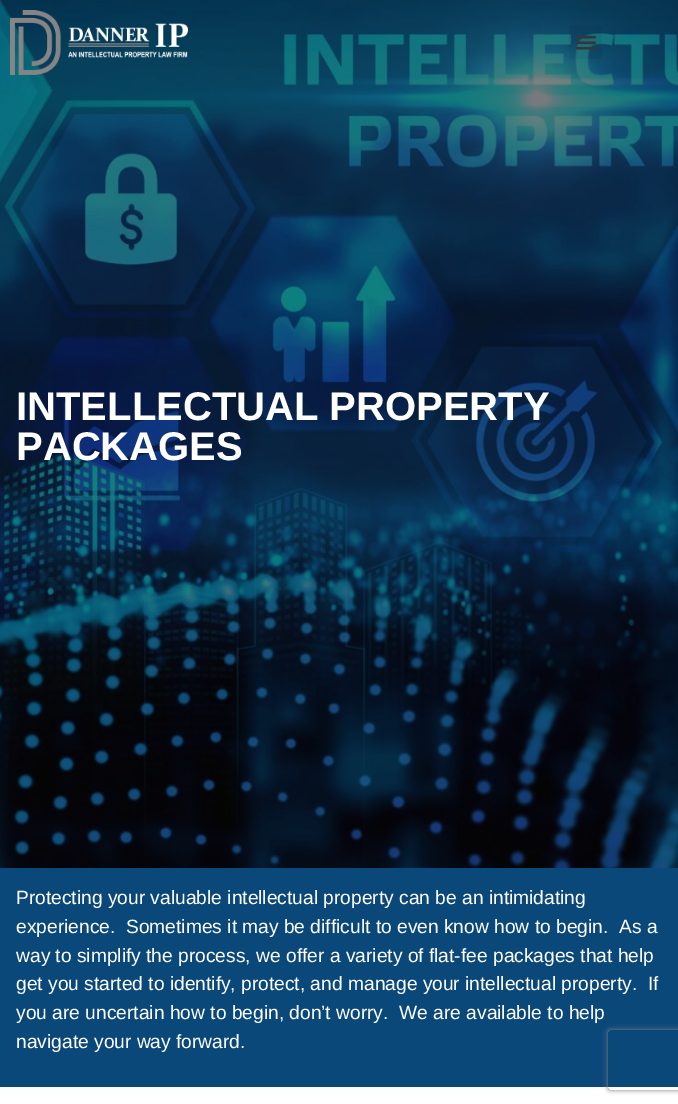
%!PS
<< /PageSize [678 1104] /PageUsesTransparency true >> setpagedevice
/alpha { dup .setfillconstantalpha .setstrokeconstantalpha } def
/roundrect { 5 dict begin { /r /h /w /y /x } { exch def } forall
  x r add y moveto x w add y 2 copy h add r arct x w add y h add x 1 index r arct
  x y h add x y r arct x y 2 copy exch w add exch r arct closepath end } def
/shadow { 12 dict begin { /a /b /q /h /w /y /x } { exch def } forall gsave /was 0 def
  9 -2 -9 { dup b mul 4 div /e exch def 1 sub .425 mul 2.718 exch exp 1 add a .99 .min exch div /now exch def
    1 1 now sub 1 was sub div sub alpha /was now def
    w h .min e 2 mul add 0 gt { x e sub y e sub w e 2 mul add h e 2 mul add
      q e add b .6 mul add w h .min 2 div e add .min 0 .max roundrect fill } if } for grestore end } def
/picture { 5 dict begin { /h /w /y /x /name } { exch def } forall
  gsave x y translate w h scale
  w h 8 [w 0 0 h 0 0] name (r) file false 3 colorimage grestore end } def
0 .pushpdf14devicefilter
0 1104 translate 1 -1 scale
4 setmiterlimit
1 setgray
0 0 678 1104 rectfill
(img3.rgb) 0 0 678 868 picture
(img1.rgb) 10 10 178 65 picture
0.05 alpha
0 setgray
569 26 33 33 rectfill
1 alpha
(img2.rgb) 576 35 20 15 picture
/LiberationSans-Bold [40 0 0 -40 0 0] selectfont
1 setgray
16 420 moveto (INTELLECTUAL PROPERTY) show
16 460 moveto (PACKAGES) show
0.043 0.282 0.478 setrgbcolor
0 868 678 219 rectfill
/LiberationSans-Regular [19.2 0 0 -19.2 0 0] selectfont
1 setgray
16 904 moveto (Protecting your valuable intellectual property can be an intimidating) show
16 933 moveto (experience.  Sometimes it may be difficult to even know how to begin.  As a) show
16 962 moveto (way to simplify the process, we offer a variety of flat-fee packages that help) show
16 990 moveto (get you started to identify, protect, and manage your intellectual property.  If) show
16 1019 moveto (you are uncertain how to begin, don’t worry.  We are available to help) show
16 1048 moveto (navigate your way forward.) show
gsave
newpath 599 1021 moveto 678 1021 lineto 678 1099 lineto 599 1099 lineto closepath 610 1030 moveto 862 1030 lineto 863 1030 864 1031 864 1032 curveto 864 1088 lineto 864 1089 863 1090 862 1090 curveto 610 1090 lineto 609 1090 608 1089 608 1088 curveto 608 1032 lineto 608 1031 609 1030 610 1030 curveto closepath eoclip newpath
0.502 setgray
608 1030 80 60 2 2.5 1 shadow
grestore
.poppdf14devicefilter showpage
